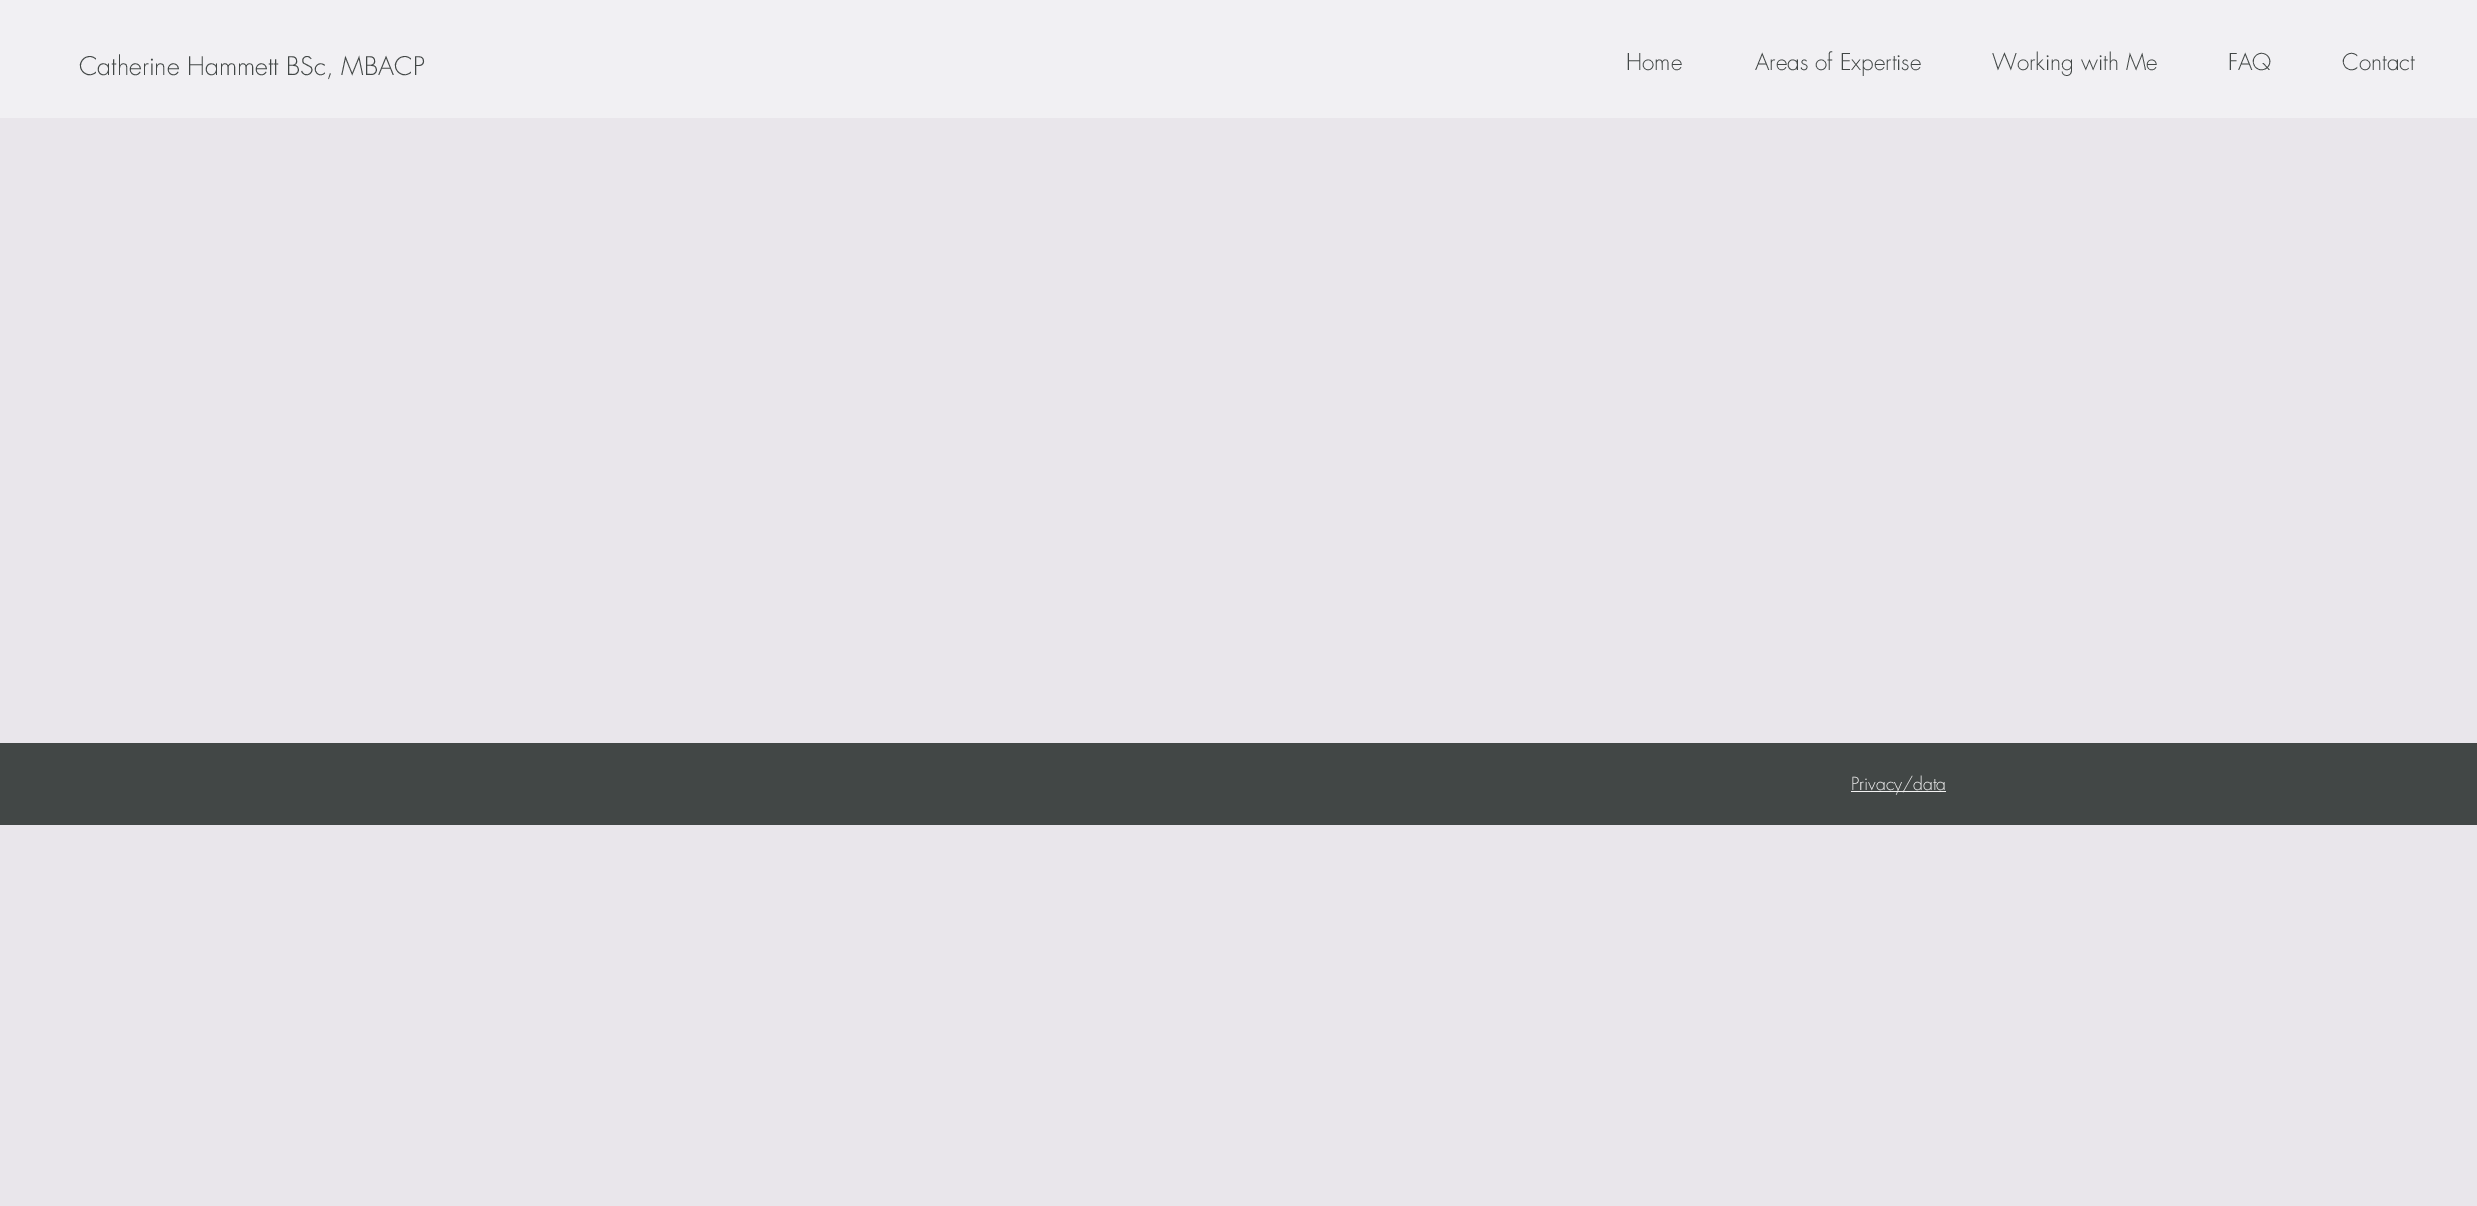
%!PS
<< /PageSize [2477 1206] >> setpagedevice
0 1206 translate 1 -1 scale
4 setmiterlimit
0.914 0.902 0.922 setrgbcolor
0 0 2477 1206 rectfill
0.945 0.941 0.953 setrgbcolor
0 0 2477 118 rectfill
/futura-Light [25 0 0 -25 0 0] selectfont
0.259 0.278 0.275 setrgbcolor
79 75 moveto (Catherine Hammett BSc, MBACP) show
/futura-Light [22.5 0 0 -22.5 0 0] selectfont
1626 70 moveto (Home) show
1755 70 moveto (Areas of Expertise) show
1992 70 moveto (Working with Me) show
2228 70 moveto (FAQ) show
2342 70 moveto (Contact) show
0 743 2477 82 rectfill
0.949 setgray
1851 791 95 1 rectfill
/futura-Light [17.5 0 0 -17.5 0 0] selectfont
1851 790 moveto (Privacy/data) show
showpage
